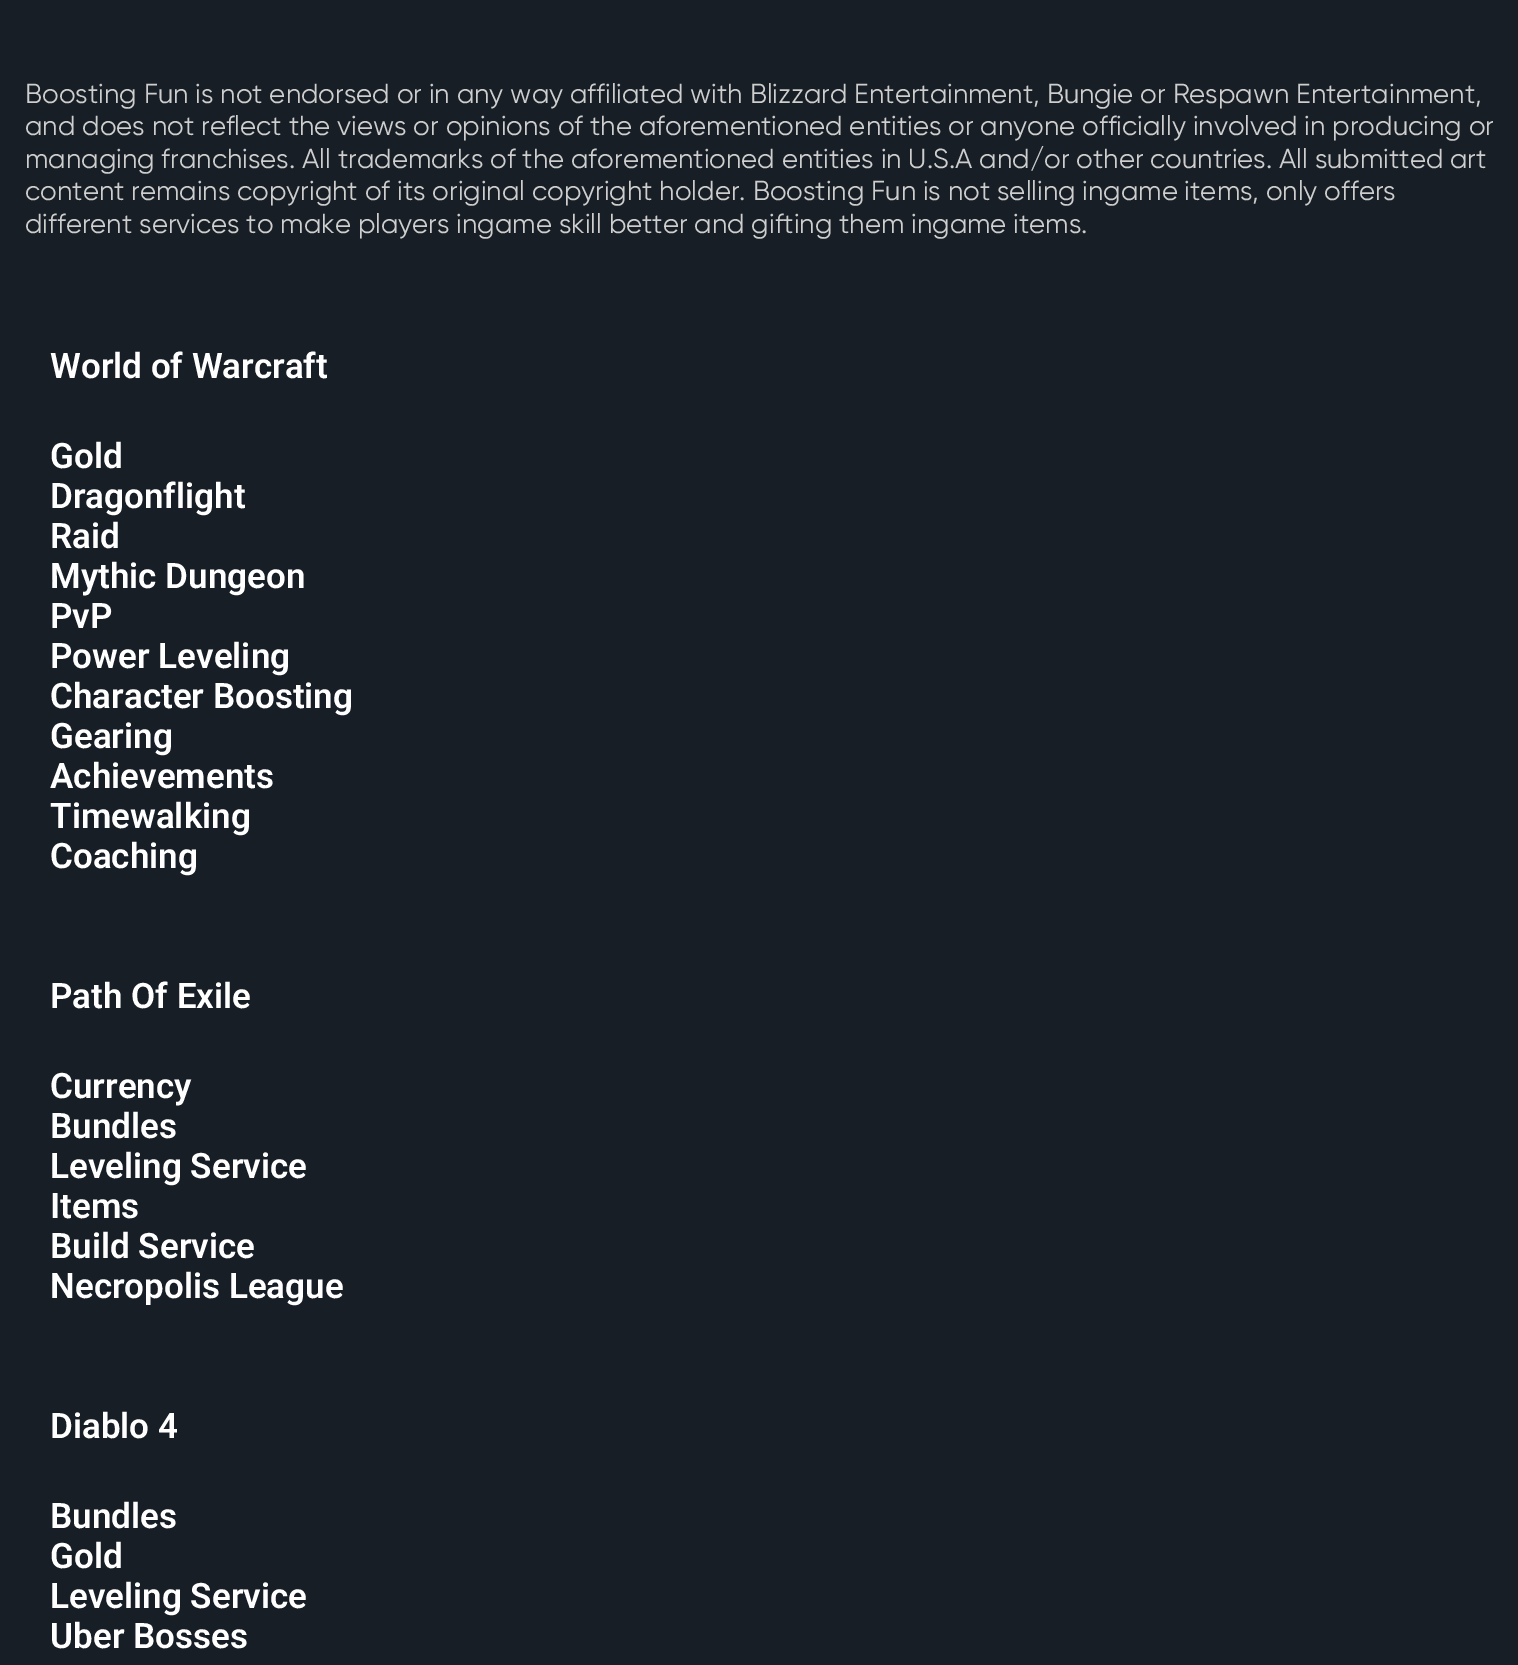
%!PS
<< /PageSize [1518 1665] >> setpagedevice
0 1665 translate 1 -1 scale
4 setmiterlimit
0.09 0.118 0.149 setrgbcolor
0 0 1518 1665 rectfill
/Gilroy-Regular [27.5 0 0 -27.5 0 0] selectfont
0.808 setgray
25 103 moveto (Boosting Fun is not endorsed or in any way affiliated with Blizzard Entertainment, Bungie or Respawn Entertainment,) show
25 135 moveto (and does not reflect the views or opinions of the aforementioned entities or anyone officially involved in producing or) show
25 168 moveto (managing franchises. All trademarks of the aforementioned entities in U.S.A and/or other countries. All submitted art) show
25 200 moveto (content remains copyright of its original copyright holder. Boosting Fun is not selling ingame items, only offers) show
25 233 moveto (different services to make players ingame skill better and gifting them ingame items.) show
/Roboto-SemiBold [35 0 0 -35 0 0] selectfont
1 setgray
50 378 moveto (World of Warcraft) show
50 468 moveto (Gold) show
50 508 moveto (Dragonflight) show
50 548 moveto (Raid) show
50 588 moveto (Mythic Dungeon) show
50 628 moveto (PvP) show
50 668 moveto (Power Leveling) show
50 708 moveto (Character Boosting) show
50 748 moveto (Gearing) show
50 788 moveto (Achievements) show
50 828 moveto (Timewalking) show
50 868 moveto (Coaching) show
50 1008 moveto (Path Of Exile) show
50 1098 moveto (Currency) show
50 1138 moveto (Bundles) show
50 1178 moveto (Leveling Service) show
50 1218 moveto (Items) show
50 1258 moveto (Build Service) show
50 1298 moveto (Necropolis League) show
50 1438 moveto (Diablo 4) show
50 1528 moveto (Bundles) show
50 1568 moveto (Gold) show
50 1608 moveto (Leveling Service) show
50 1648 moveto (Uber Bosses) show
showpage
